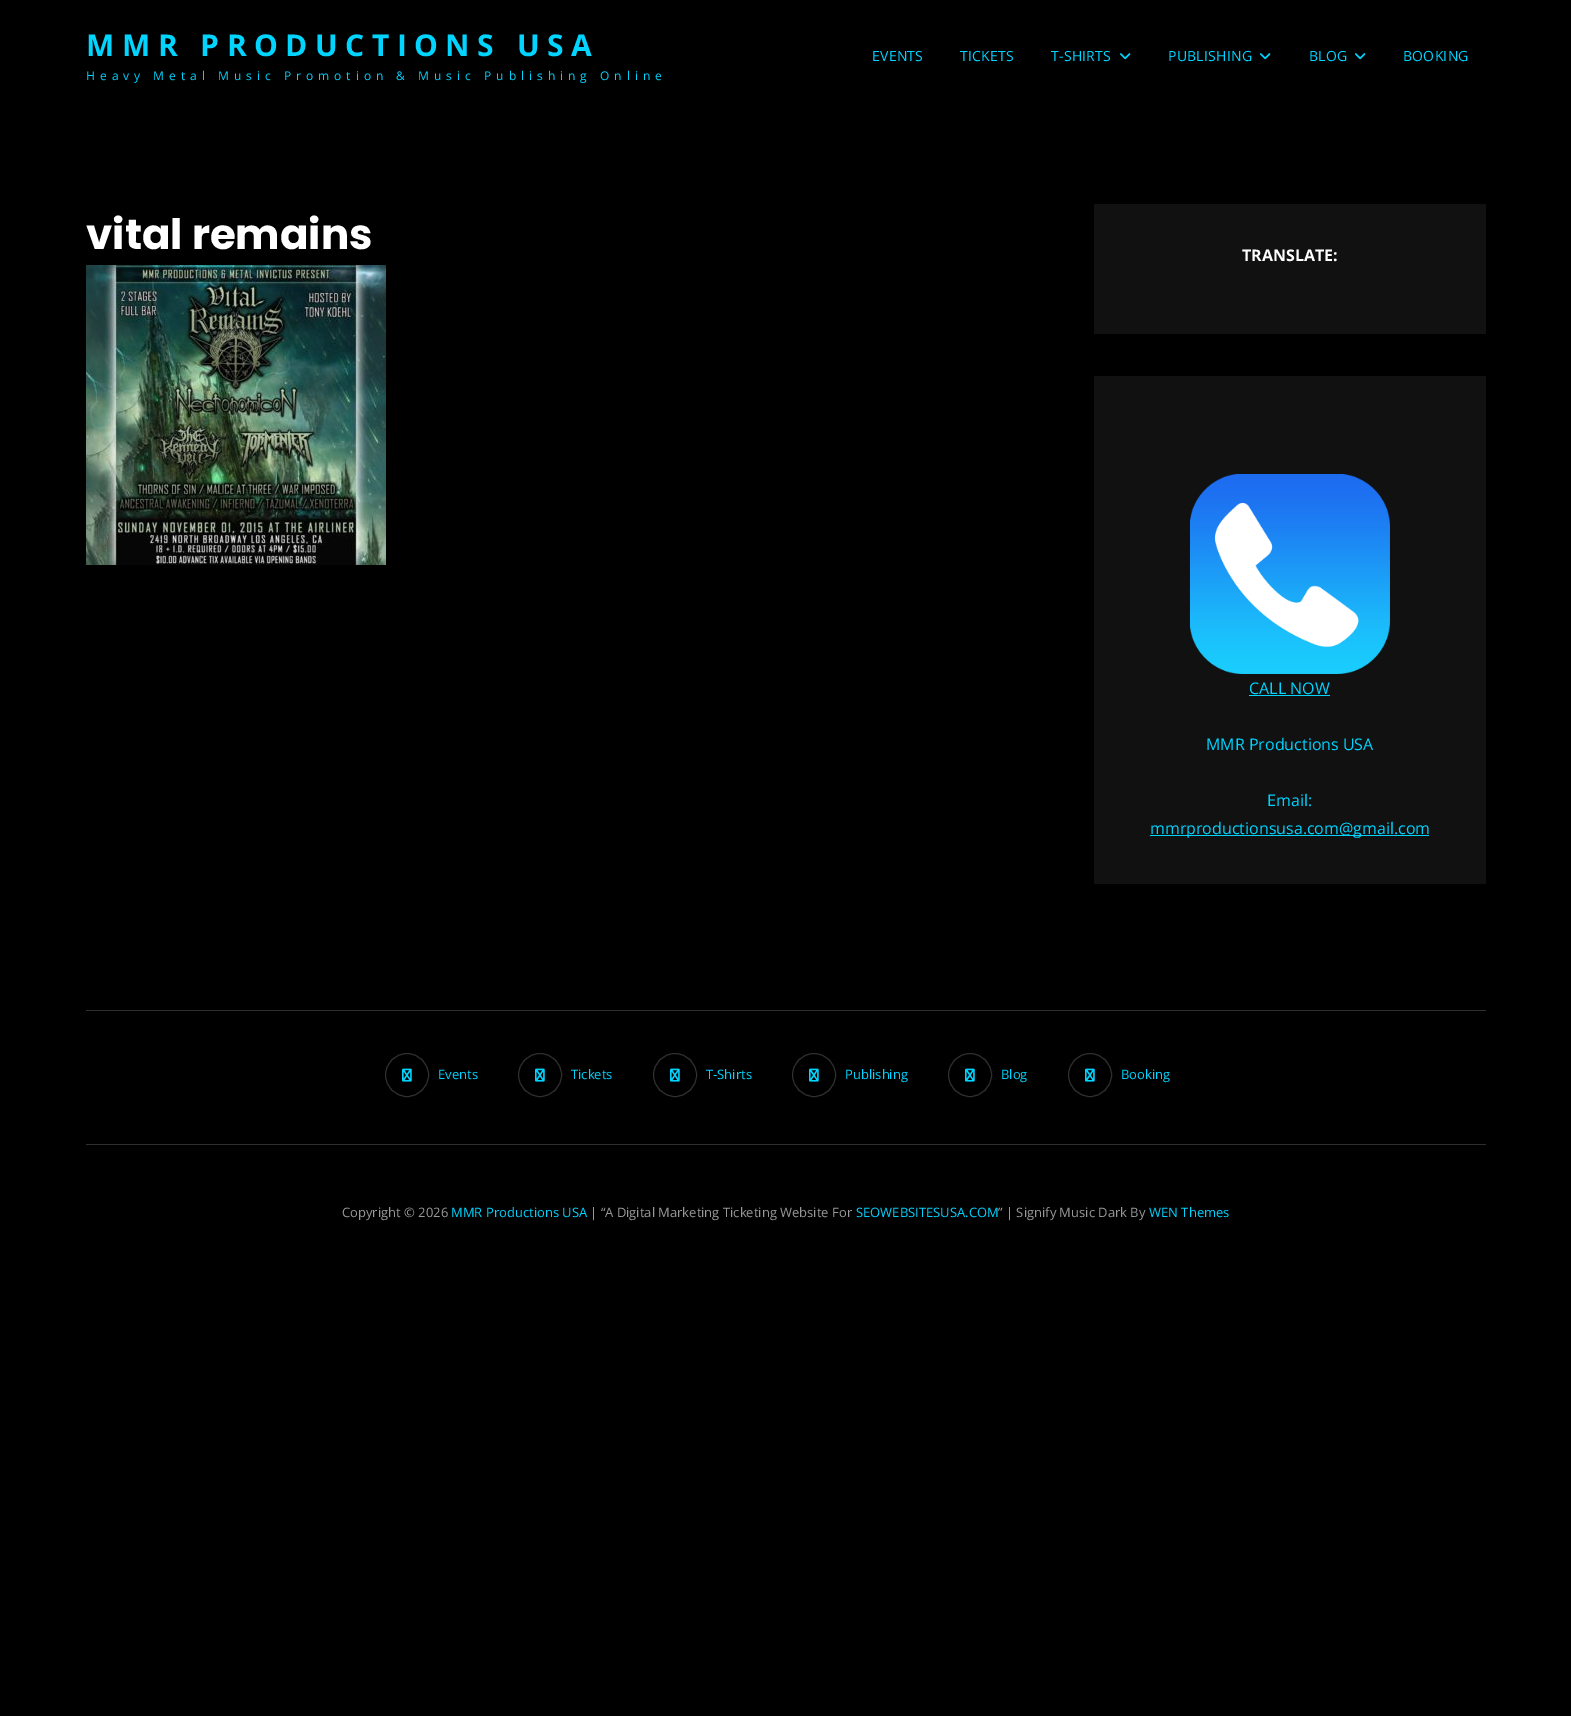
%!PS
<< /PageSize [1571 1716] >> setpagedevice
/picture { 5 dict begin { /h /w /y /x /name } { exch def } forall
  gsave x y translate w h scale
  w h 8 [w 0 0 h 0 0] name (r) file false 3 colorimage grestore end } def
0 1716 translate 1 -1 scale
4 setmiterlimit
0 setgray
0 0 1571 1716 rectfill
/OpenSans-Bold [30 0 0 -30 0 0] selectfont
0 0.831 1 setrgbcolor
86 56 moveto 7.5 0 (MMR PRODUCTIONS USA) ashow
/OpenSans-Regular [12 0 0 -12 0 0] selectfont
86 80 moveto 5 0 (Heavy Metal Music Promotion & Music Publishing Online) ashow
/OpenSans-Regular [14 0 0 -14 0 0] selectfont
872 61 moveto 0.25 0 (EVENTS) ashow
960 61 moveto 0.25 0 (TICKETS) ashow
1051 61 moveto 0.25 0 (T-SHIRTS) ashow
(img1.rgb) 1120 53 11 7 picture
1168 61 moveto 0.25 0 (PUBLISHING) ashow
(img1.rgb) 1260 53 11 7 picture
1309 61 moveto 0.25 0 (BLOG) ashow
(img1.rgb) 1355 53 11 7 picture
1403 61 moveto 0.25 0 (BOOKING) ashow
/Poppins-Bold [42 0 0 -42 0 0] selectfont
1 setgray
86 249 moveto (vital remains) show
(img2.rgb) 86 265 300 300 picture
0.067 setgray
1094 204 392 130 rectfill
/OpenSans-Bold [16 0 0 -16 0 0] selectfont
1 setgray
1242 261 moveto (TRANSLATE:) show
0.067 setgray
1094 376 392 508 rectfill
(img3.rgb) 1190 474 200 200 picture
/OpenSans-Regular [16 0 0 -16 0 0] selectfont
0 0.831 1 setrgbcolor
1249 694 moveto (CALL NOW) show
1249 695 81 1 rectfill
1206 750 moveto (MMR Productions USA) show
1267 806 moveto (Email:) show
1150 835 279 1 rectfill
1150 834 moveto (mmrproductionsusa.com@gmail.com) show
0.184 setgray
86 1010 1400 1 rectfill
86 1144 1400 1 rectfill
newpath 407 1075 21.5 0 360 arc closepath stroke
(img4.rgb) 402 1068 10 14 picture
/OpenSans-Regular [13 0 0 -13 0 0] selectfont
0 0.831 1 setrgbcolor
438 1079 moveto (Events) show
0.184 setgray
newpath 540 1075 21.5 0 360 arc closepath stroke
(img4.rgb) 535 1068 10 14 picture
0 0.831 1 setrgbcolor
571 1079 moveto (Tickets) show
0.184 setgray
newpath 675 1075 21.5 0 360 arc closepath stroke
(img4.rgb) 670 1068 10 14 picture
0 0.831 1 setrgbcolor
706 1079 moveto (T-Shirts) show
0.184 setgray
newpath 814 1075 21.5 0 360 arc closepath stroke
(img4.rgb) 809 1068 10 14 picture
0 0.831 1 setrgbcolor
845 1079 moveto (Publishing) show
0.184 setgray
newpath 970 1075 21.5 0 360 arc closepath stroke
(img4.rgb) 965 1068 10 14 picture
0 0.831 1 setrgbcolor
1001 1079 moveto (Blog) show
0.184 setgray
newpath 1090 1075 21.5 0 360 arc closepath stroke
(img4.rgb) 1085 1068 10 14 picture
0 0.831 1 setrgbcolor
1121 1079 moveto (Booking) show
0.6 setgray
342 1217 moveto (Copyright © 2026) show
0 0.831 1 setrgbcolor
451 1217 moveto (MMR Productions USA) show
0.6 setgray
590 1217 moveto (| “A Digital Marketing Ticketing Website For) show
0 0.831 1 setrgbcolor
856 1217 moveto (SEOWEBSITESUSA.COM) show
0.6 setgray
998 1217 moveto (” | Signify Music Dark By) show
0 0.831 1 setrgbcolor
1149 1217 moveto (WEN Themes) show
showpage
